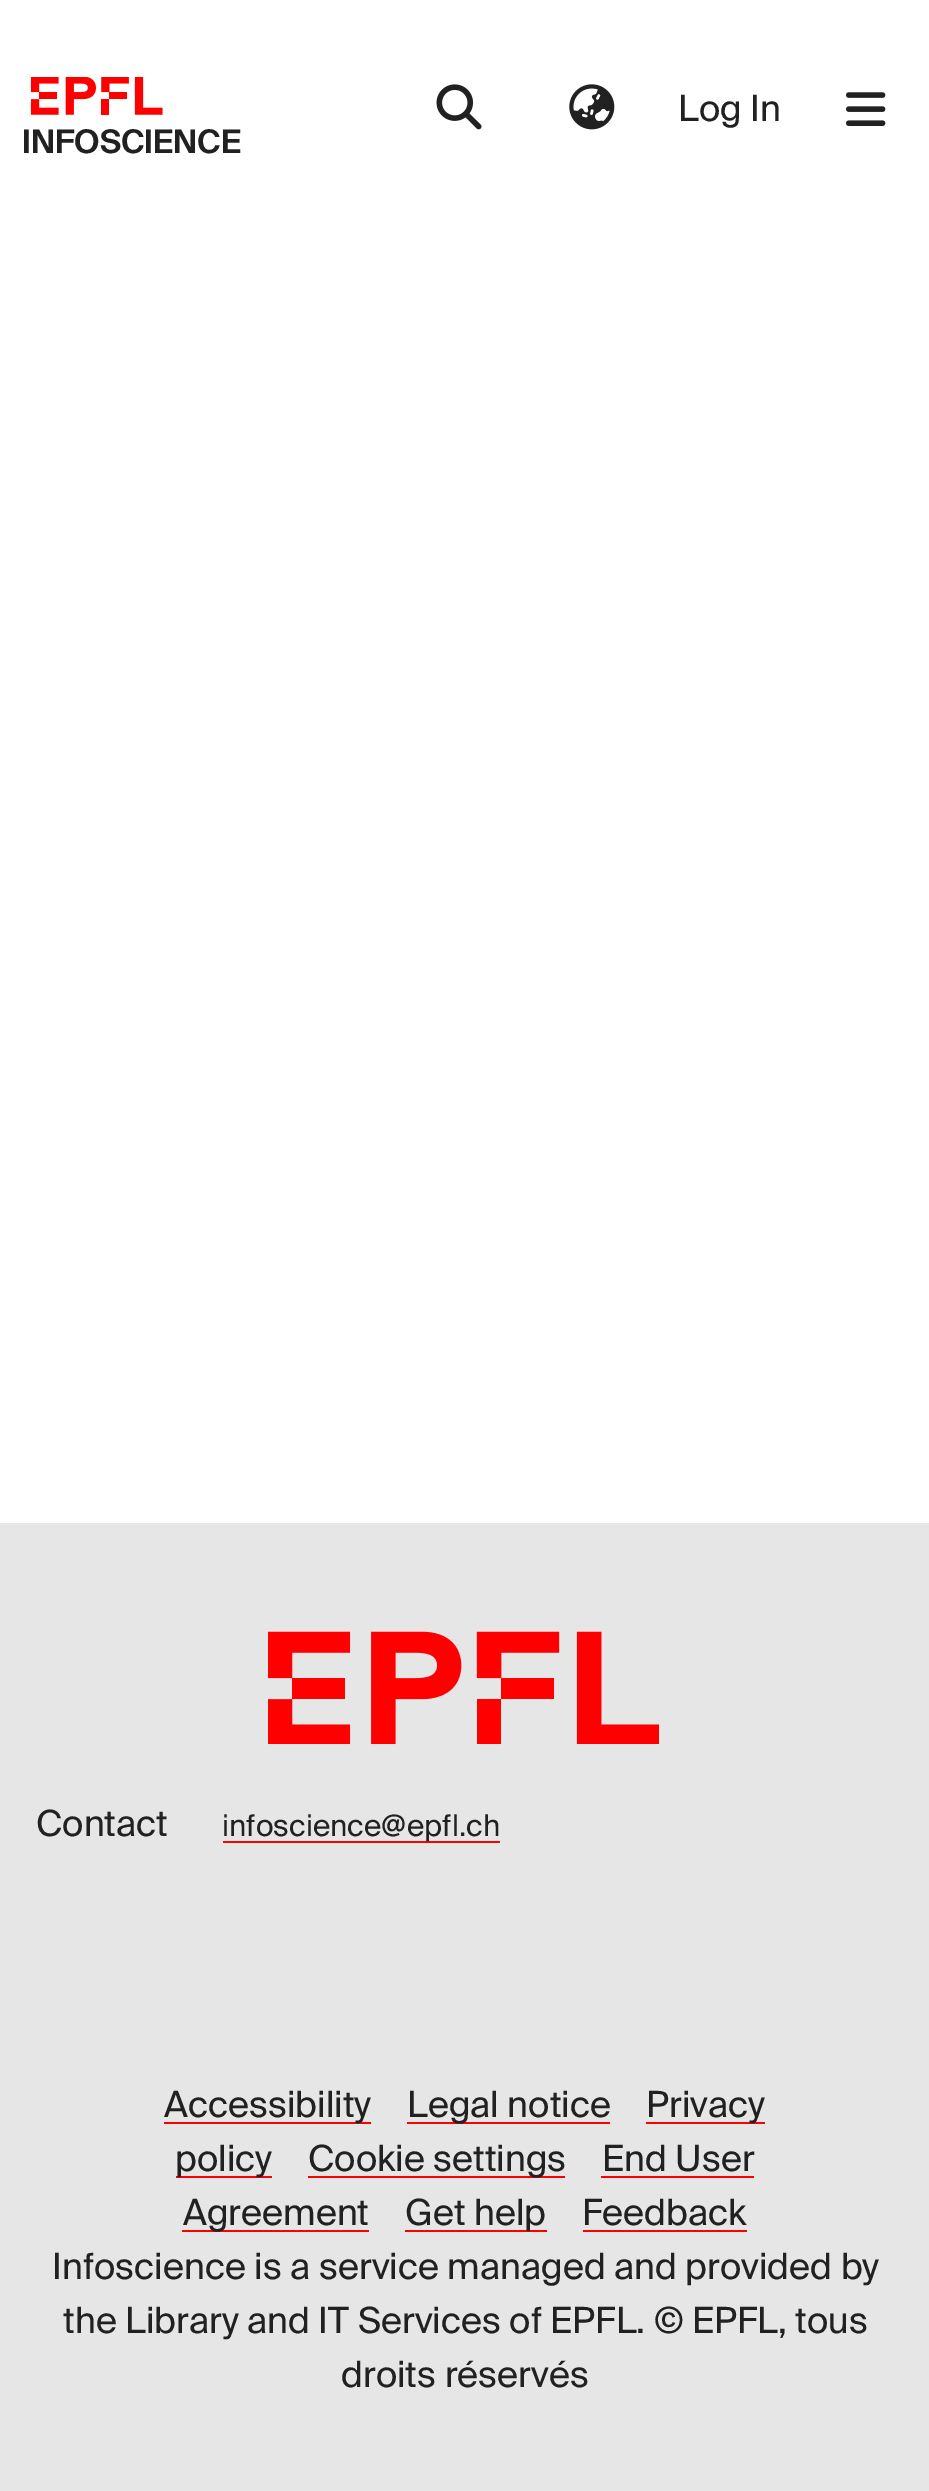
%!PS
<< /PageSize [929 2491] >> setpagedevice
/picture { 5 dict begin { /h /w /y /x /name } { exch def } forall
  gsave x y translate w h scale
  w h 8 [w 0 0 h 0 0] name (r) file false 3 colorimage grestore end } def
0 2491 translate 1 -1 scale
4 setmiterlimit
1 setgray
0 0 929 2491 rectfill
(img1.rgb) 436 84 46 46 picture
(img2.rgb) 569 84 46 46 picture
/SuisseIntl-Regular [36.1 0 0 -36.1 0 0] selectfont
0.129 setgray
678 121 moveto (Log In) show
(img3.rgb) 846 92 40 34 picture
(img4.rgb) 30 77 133 38 picture
/SuisseIntl-SemiBold [32.5 0 0 -32.5 0 0] selectfont
22 153 moveto (INFOSCIENCE) show
0.902 setgray
0 1523 929 968 rectfill
(img5.rgb) 268 1631 391 113 picture
/SuisseIntl-Regular [36.1 0 0 -36.1 0 0] selectfont
0.129 setgray
36 1836 moveto (Contact) show
1 0 0 setrgbcolor
223 1841 277 2 rectfill
/SuisseIntl-Regular [29.9 0 0 -29.9 0 0] selectfont
0.129 setgray
222 1836 moveto (infoscience@epfl.ch) show
1 0 0 setrgbcolor
164 2122 207 2 rectfill
/SuisseIntl-Regular [36.1 0 0 -36.1 0 0] selectfont
0.129 setgray
164 2117 moveto (Accessibility) show
1 0 0 setrgbcolor
407 2122 203 2 rectfill
0.129 setgray
407 2117 moveto (Legal notice) show
1 0 0 setrgbcolor
646 2122 119 2 rectfill
0.129 setgray
646 2117 moveto (Privacy) show
1 0 0 setrgbcolor
176 2176 96 2 rectfill
0.129 setgray
175 2171 moveto (policy) show
1 0 0 setrgbcolor
308 2176 257 2 rectfill
0.129 setgray
308 2171 moveto (Cookie settings) show
602 2171 moveto (End User) show
1 0 0 setrgbcolor
601 2176 153 2 rectfill
182 2230 187 2 rectfill
0.129 setgray
183 2225 moveto (Agreement) show
1 0 0 setrgbcolor
405 2230 142 2 rectfill
0.129 setgray
405 2225 moveto (Get help) show
582 2225 moveto (Feedback) show
1 0 0 setrgbcolor
583 2230 164 2 rectfill
0.129 setgray
52 2279 moveto (Infoscience is a service managed and provided by) show
63 2333 moveto (the Library and IT Services of EPFL. © EPFL, tous) show
341 2387 moveto (droits réservés) show
showpage
